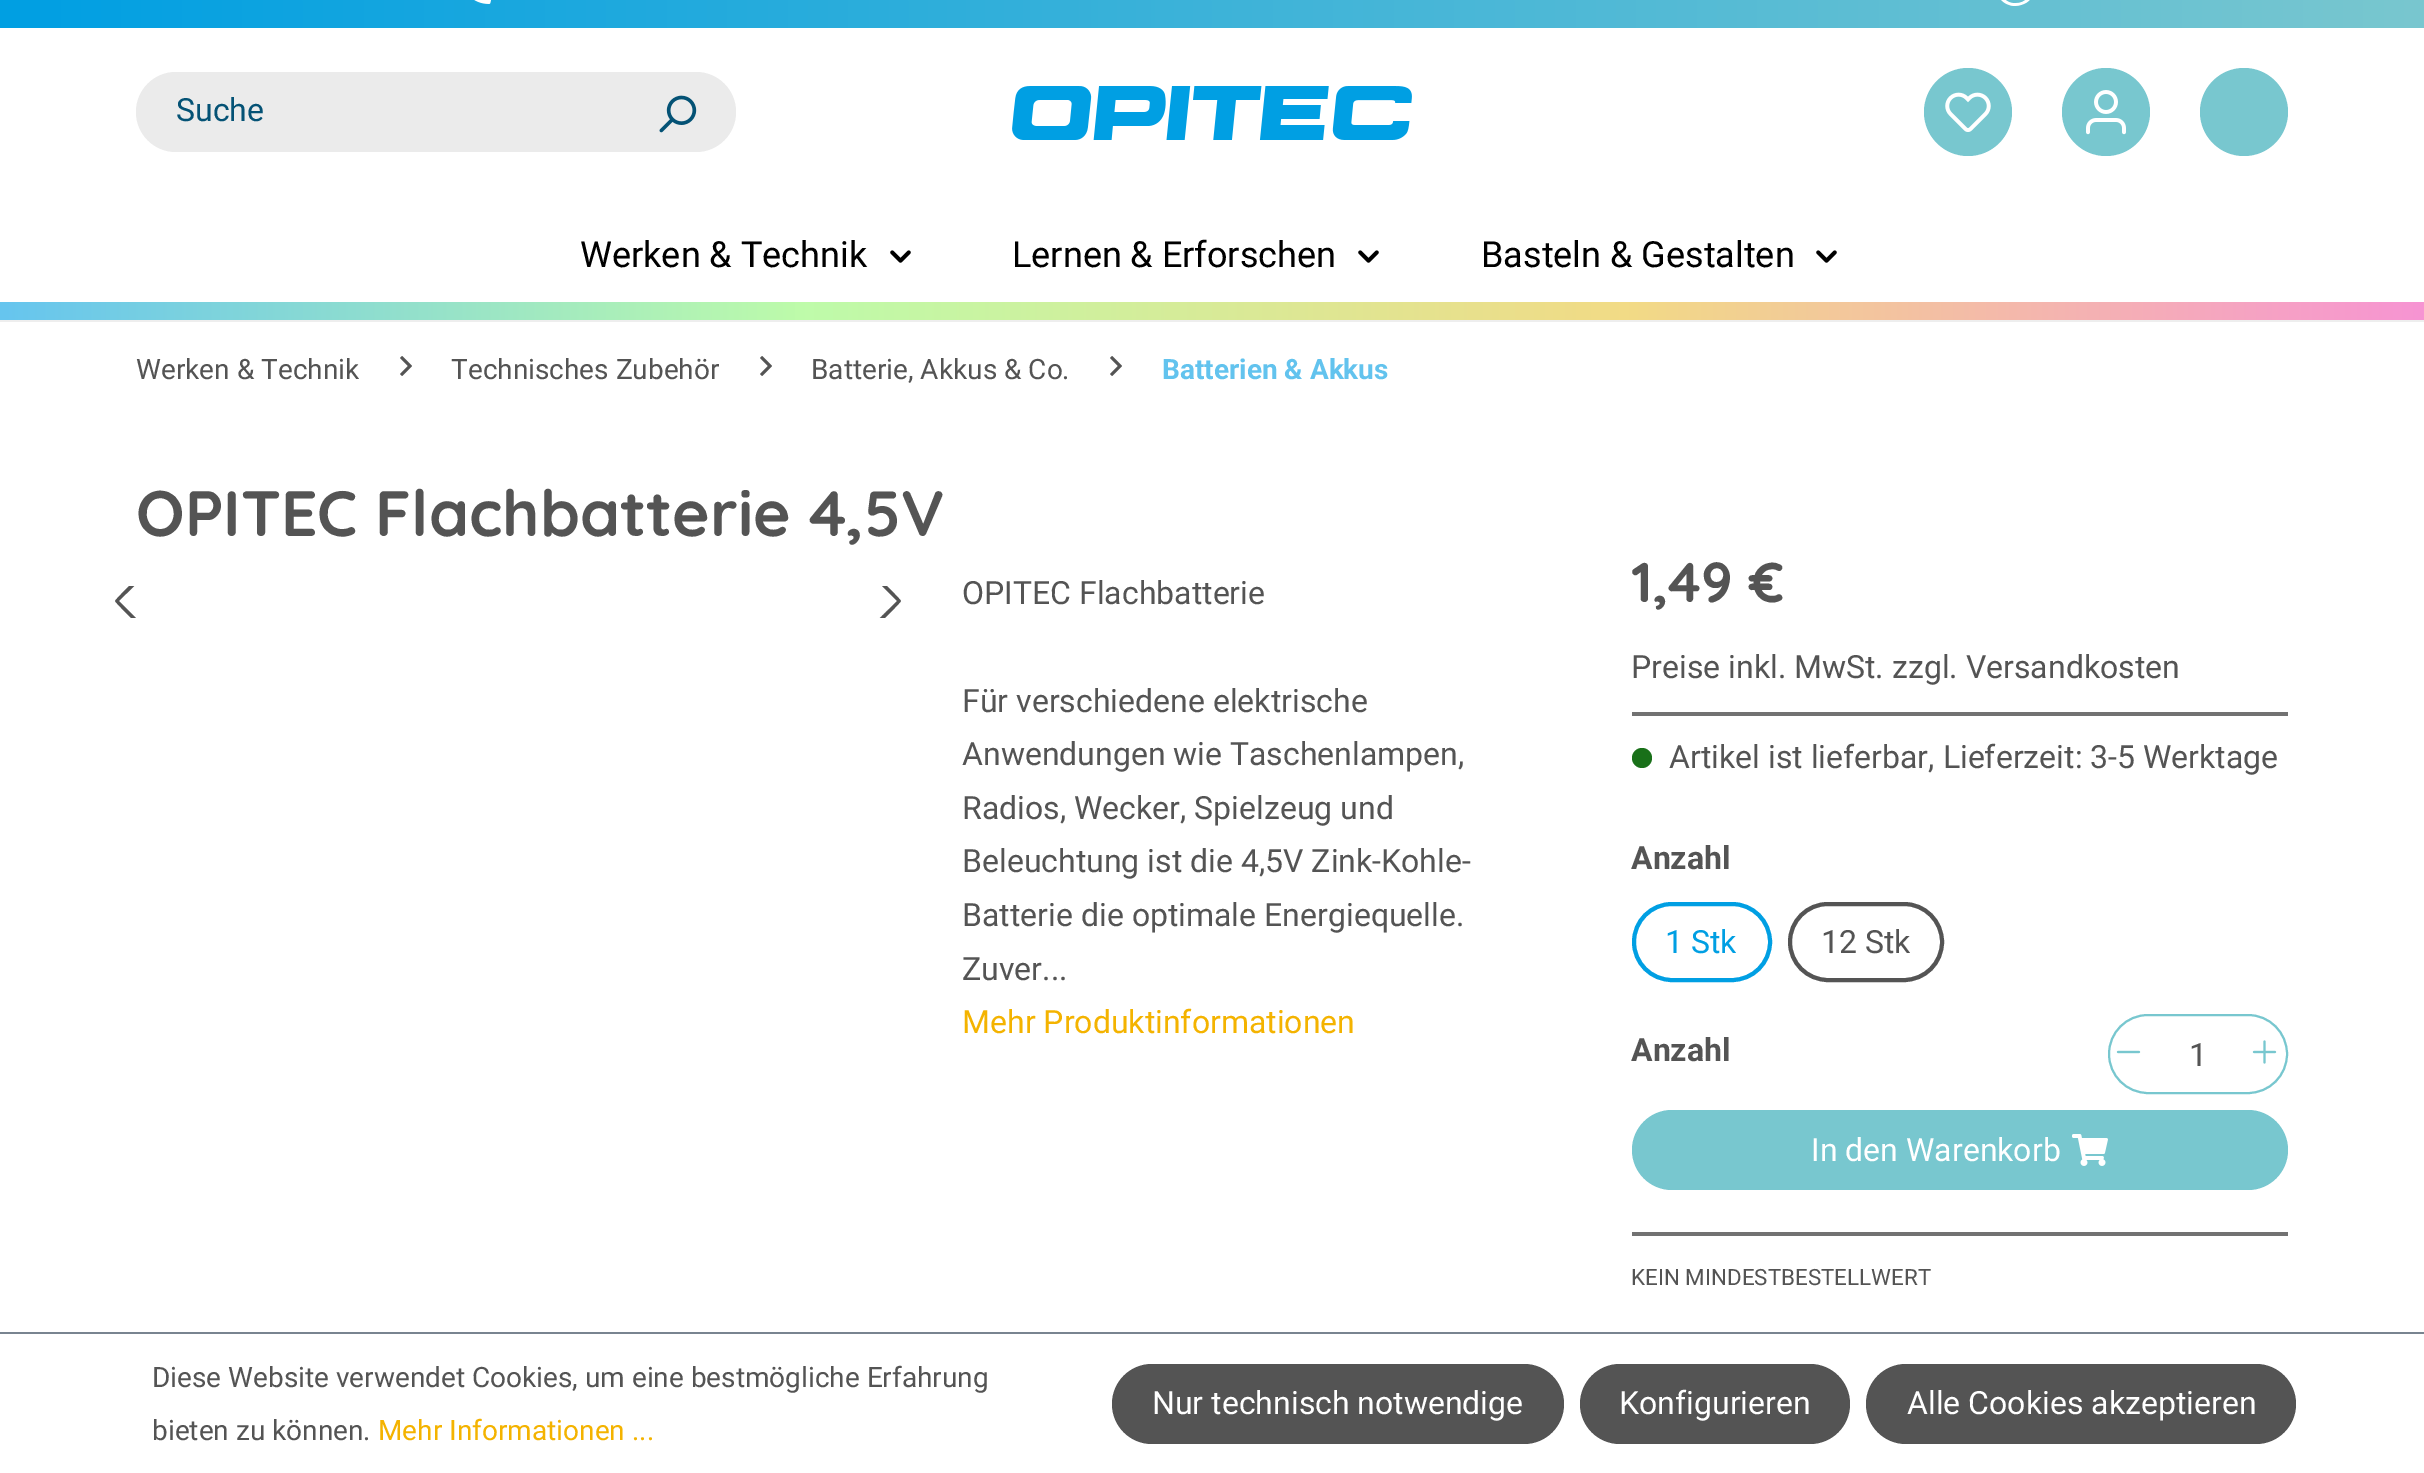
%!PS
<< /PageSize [2424 1473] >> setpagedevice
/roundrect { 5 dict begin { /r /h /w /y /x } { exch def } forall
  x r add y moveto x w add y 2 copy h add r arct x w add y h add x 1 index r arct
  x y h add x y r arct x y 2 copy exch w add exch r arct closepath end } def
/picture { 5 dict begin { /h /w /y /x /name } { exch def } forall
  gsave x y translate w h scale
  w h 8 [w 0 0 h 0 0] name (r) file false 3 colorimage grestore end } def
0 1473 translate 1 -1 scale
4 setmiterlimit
1 setgray
0 0 2424 1473 rectfill
gsave newpath 0 0 moveto 2424 0 lineto 2424 28 lineto 0 28 lineto closepath clip newpath
<< /ShadingType 2 /ColorSpace /DeviceRGB /Coords [0 -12 2424 -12] /Extend [true true] /Function << /FunctionType 2 /Domain [0 1] /C0 [0 0.624 0.89] /C1 [0.475 0.78 0.812] /N 1 >> >> shfill grestore
(img1.rgb) 474 0 17 4 picture
(img2.rgb) 2001 0 29 6 picture
0.922 setgray
136 72 600 80 40 roundrect fill
/Roboto-Regular [32 0 0 -32 0 0] selectfont
0.016 0.322 0.459 setrgbcolor
176 121 moveto (Suche) show
(img3.rgb) 659 95 38 38 picture
(img4.rgb) 1012 86 400 54 picture
0.471 0.78 0.812 setrgbcolor
newpath 1968 112 44 0 360 arc closepath fill
(img5.rgb) 1945 92 46 40 picture
newpath 2106 112 44 0 360 arc closepath fill
(img6.rgb) 2086 90 40 45 picture
newpath 2244 112 44 0 360 arc closepath fill
0.933 setgray
0 320 2424 2 rectfill
/Roboto-Regular [36 0 0 -36 0 0] selectfont
0 setgray
580 267 moveto (Werken & Technik) show
(img7.rgb) 890 250 21 13 picture
1012 267 moveto (Lernen & Erforschen) show
(img7.rgb) 1358 250 21 13 picture
1481 267 moveto (Basteln & Gestalten) show
(img7.rgb) 1816 250 21 13 picture
gsave newpath 0 302 moveto 2424 302 lineto 2424 320 lineto 0 320 lineto closepath clip newpath
<< /ShadingType 2 /ColorSpace /DeviceRGB /Coords [0 312 2424 312] /Extend [true true] /Function << /FunctionType 3 /Domain [0 1] /Functions [<< /FunctionType 2 /Domain [0 1] /C0 [0.4 0.773 0.937] /C1 [0.745 0.984 0.667] /N 1 >> << /FunctionType 2 /Domain [0 1] /C0 [0.745 0.984 0.667] /C1 [0.949 0.859 0.525] /N 1 >> << /FunctionType 2 /Domain [0 1] /C0 [0.949 0.859 0.525] /C1 [0.969 0.58 0.827] /N 1 >>] /Bounds [0.33 0.67] /Encode [0 1 0 1 0 1] >> >> shfill grestore
/Roboto-Regular [28 0 0 -28 0 0] selectfont
0.329 setgray
136 379 moveto (Werken & Technik) show
(img8.rgb) 400 356 12 20 picture
451 379 moveto (Technisches Zubehör) show
(img8.rgb) 760 356 12 20 picture
811 379 moveto (Batterie, Akkus & Co.) show
(img8.rgb) 1110 356 12 20 picture
/Roboto-Bold [28 0 0 -28 0 0] selectfont
0.384 0.765 0.933 setrgbcolor
1162 379 moveto (Batterien & Akkus) show
/Quicksand-Light [64 0 0 -64 0 0] selectfont
0.329 setgray
136 536 moveto (OPITEC Flachbatterie 4,5V) show
gsave
104 586 44 32 rectclip
newpath 119 601 moveto 138 620 lineto 139 621 139 623 137 623 curveto 136 623 lineto 134 621 115 602 115 601 curveto 115 600 134 581 136 579 curveto 137 579 lineto 139 579 139 581 138 582 curveto closepath eofill
grestore
gsave
868 586 44 32 rectclip
newpath 897 601 moveto 878 620 lineto 877 621 877 623 879 623 curveto 880 623 lineto 882 621 901 602 901 601 curveto 901 600 882 581 880 579 curveto 879 579 lineto 877 579 877 581 878 582 curveto closepath eofill
grestore
/Roboto-Regular [32 0 0 -32 0 0] selectfont
962 604 moveto (OPITEC Flachbatterie) show
962 712 moveto (Für verschiedene elektrische) show
962 765 moveto (Anwendungen wie Taschenlampen,) show
962 819 moveto (Radios, Wecker, Spielzeug und) show
962 872 moveto (Beleuchtung ist die 4,5V Zink-Kohle-) show
962 926 moveto (Batterie die optimale Energiequelle.) show
962 980 moveto (Zuver...) show
0.957 0.702 0 setrgbcolor
962 1033 moveto (Mehr Produktinformationen) show
/Quicksand-Light [56 0 0 -56 0 0] selectfont
0.329 setgray
1631 602 moveto (1,49 €) show
0.447 setgray
1632 712 656 4 rectfill
/Roboto-Regular [32 0 0 -32 0 0] selectfont
0.329 setgray
1631 678 moveto (Preise inkl. MwSt. zzgl. Versandkosten) show
0.098 0.439 0.098 setrgbcolor
newpath 1642 758 10 0 360 arc closepath fill
0.329 setgray
1669 768 moveto (Artikel ist lieferbar, Lieferzeit: 3-5 Werktage) show
/Roboto-Bold [32 0 0 -32 0 0] selectfont
1631 869 moveto (Anzahl) show
0 0.624 0.89 setrgbcolor
4 setlinewidth
1634 904 136 76 38 roundrect stroke
/Roboto-Regular [32 0 0 -32 0 0] selectfont
1665 953 moveto (1 Stk) show
0.329 setgray
1790 904 152 76 38 roundrect stroke
1821 953 moveto (12 Stk) show
/Roboto-Bold [32 0 0 -32 0 0] selectfont
1631 1061 moveto (Anzahl) show
0.471 0.78 0.812 setrgbcolor
2 setlinewidth
2109 1015 178 78 39 roundrect stroke
(img9.rgb) 2116 1050 25 4 picture
/Roboto-Regular [32 0 0 -32 0 0] selectfont
0.329 setgray
2189 1066 moveto (1) show
(img10.rgb) 2252 1040 25 24 picture
0.471 0.78 0.812 setrgbcolor
1632 1110 656 80 40 roundrect fill
1 setgray
1811 1161 moveto (In den Warenkorb) show
(img11.rgb) 2072 1134 36 32 picture
0.447 setgray
1632 1232 656 4 rectfill
/Roboto-Regular [22.4 0 0 -22.4 0 0] selectfont
0.329 setgray
1631 1285 moveto (KEIN MINDESTBESTELLWERT) show
0.475 0.518 0.565 setrgbcolor
0 1332 2424 2 rectfill
/Roboto-Regular [28 0 0 -28 0 0] selectfont
0.329 setgray
152 1387 moveto (Diese Website verwendet Cookies, um eine bestmögliche Erfahrung) show
152 1440 moveto (bieten zu können.) show
0.957 0.702 0 setrgbcolor
378 1440 moveto (Mehr Informationen ...) show
0.329 setgray
1112 1364 452 80 40 roundrect fill
/Roboto-Regular [32 0 0 -32 0 0] selectfont
1 setgray
1152 1414 moveto (Nur technisch notwendige) show
0.329 setgray
1580 1364 270 80 40 roundrect fill
1 setgray
1619 1414 moveto (Konfigurieren) show
0.329 setgray
1866 1364 430 80 40 roundrect fill
1 setgray
1907 1414 moveto (Alle Cookies akzeptieren) show
showpage
